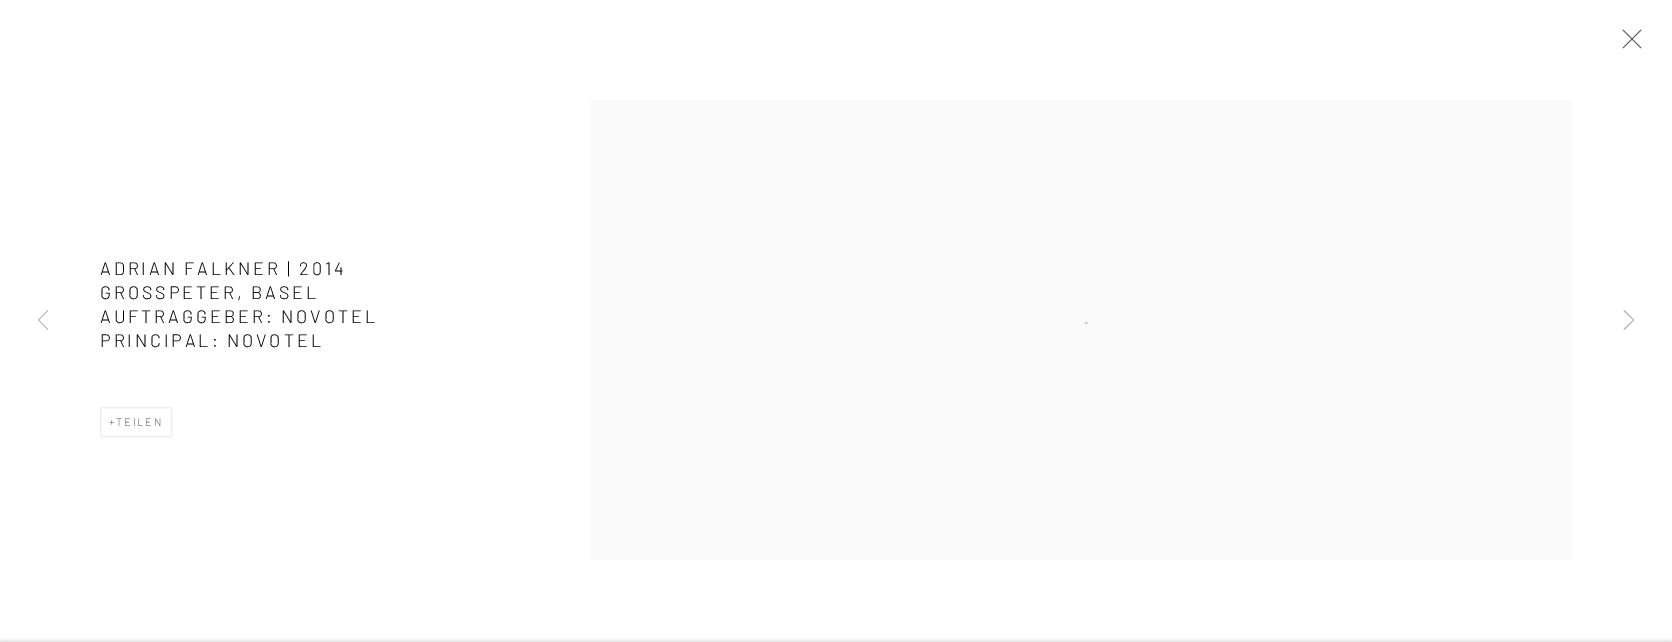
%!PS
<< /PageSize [1672 642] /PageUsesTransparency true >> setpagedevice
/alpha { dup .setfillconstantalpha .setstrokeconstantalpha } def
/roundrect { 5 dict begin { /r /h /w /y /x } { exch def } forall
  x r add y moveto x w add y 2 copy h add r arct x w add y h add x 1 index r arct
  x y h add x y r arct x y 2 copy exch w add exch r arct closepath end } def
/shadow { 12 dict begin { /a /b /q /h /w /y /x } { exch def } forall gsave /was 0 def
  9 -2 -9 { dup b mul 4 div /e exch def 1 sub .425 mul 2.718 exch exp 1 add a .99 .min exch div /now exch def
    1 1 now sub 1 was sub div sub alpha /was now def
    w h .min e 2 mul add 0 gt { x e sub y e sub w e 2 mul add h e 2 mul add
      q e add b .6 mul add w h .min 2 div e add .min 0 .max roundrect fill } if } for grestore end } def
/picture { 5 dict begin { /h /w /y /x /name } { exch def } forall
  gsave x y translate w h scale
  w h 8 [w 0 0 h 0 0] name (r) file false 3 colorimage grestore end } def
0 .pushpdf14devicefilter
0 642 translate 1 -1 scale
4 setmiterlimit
1 setgray
0 0 1672 642 rectfill
(img1.rgb) 1622 29 20 20 picture
/Barlow-Light [18 0 0 -18 0 0] selectfont
0.004 setgray
100 275 moveto 2.9 0 (ADRIAN FALKNER | 2014) ashow
100 299 moveto 2.9 0 (GROSSPETER, BASEL) ashow
100 323 moveto 2.9 0 (AUFTRAGGEBER: NOVOTEL) ashow
100 347 moveto 2.9 0 (PRINCIPAL: NOVOTEL) ashow
0.922 setgray
100.5 407.5 71 29 1.5 roundrect stroke
/Barlow-Light [11 0 0 -11 0 0] selectfont
0.345 setgray
109 426 moveto 1.75 0 (+TEILEN) ashow
0.98 setgray
591 100 981 460 rectfill
0.733 setgray
1.8 setlinewidth
1 setlinecap
newpath 1086 323 moveto 1086.5 323 lineto stroke
(img2.rgb) 38 310 11 20 picture
0.725 setgray
newpath 1634.5 320 moveto 1624.5 310 lineto 1623.5 311 lineto 1633 320 lineto 1623.5 329 lineto 1624.5 330 lineto closepath fill
0 setgray
0 642 1672 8 0 2.5 0.23 shadow
.poppdf14devicefilter showpage
